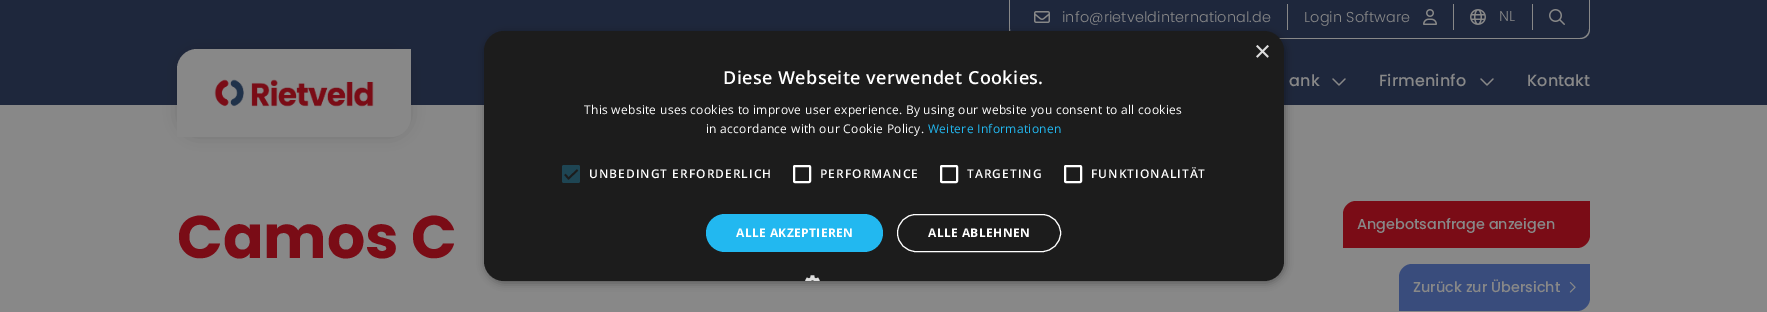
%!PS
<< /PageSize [1767 312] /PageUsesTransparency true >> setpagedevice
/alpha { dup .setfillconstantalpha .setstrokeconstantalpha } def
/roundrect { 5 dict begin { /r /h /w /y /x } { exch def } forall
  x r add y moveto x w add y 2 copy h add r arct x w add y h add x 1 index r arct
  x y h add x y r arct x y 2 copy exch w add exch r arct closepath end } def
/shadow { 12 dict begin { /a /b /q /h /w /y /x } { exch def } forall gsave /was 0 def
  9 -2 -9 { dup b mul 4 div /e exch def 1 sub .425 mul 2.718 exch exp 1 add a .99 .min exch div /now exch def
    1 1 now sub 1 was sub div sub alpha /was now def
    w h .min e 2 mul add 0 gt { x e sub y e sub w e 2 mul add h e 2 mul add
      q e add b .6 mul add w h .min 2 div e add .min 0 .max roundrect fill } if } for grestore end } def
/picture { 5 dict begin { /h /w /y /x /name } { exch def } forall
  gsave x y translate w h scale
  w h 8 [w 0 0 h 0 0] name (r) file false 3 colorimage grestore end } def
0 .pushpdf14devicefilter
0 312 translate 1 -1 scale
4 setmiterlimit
0.533 setgray
0 0 1767 312 rectfill
0.118 0.153 0.235 setrgbcolor
0 0 1767 105 rectfill
0.533 setgray
newpath 1009 0 moveto 1590 0 lineto 1590 29 lineto 1590 35 1586 39 1580 39 curveto 1019 39 lineto 1013 39 1009 35 1009 29 curveto closepath 1010 0 moveto 1589 0 lineto 1589 29 lineto 1589 34 1585 38 1580 38 curveto 1019 38 lineto 1014 38 1010 34 1010 29 curveto closepath eofill
1287 4 1 26 rectfill
(img1.rgb) 1034 11 16 12 picture
/Poppins-Light [14.4 0 0 -14.4 0 0] selectfont
1062 22 moveto 0.15 0 (info@rietveldinternational.de) ashow
1453 4 1 26 rectfill
1304 22 moveto 0.15 0 (Login Software) ashow
(img2.rgb) 1423 9 14 16 picture
1532 4 1 26 rectfill
(img3.rgb) 1470 9 16 16 picture
1499 21 moveto (NL) show
(img4.rgb) 1549 9 16 16 picture
0.035 setgray
177 49 234 88 20 8.5 0.15 shadow
0.533 setgray
newpath 197 49 moveto 411 49 lineto 411 117 lineto 411 128 402 137 391 137 curveto 177 137 lineto 177 69 lineto 177 58 186 49 197 49 curveto closepath fill
(img5.rgb) 214 79 160 28 picture
/Poppins-Medium [16 0 0 -16 0 0] selectfont
1289 86 moveto 0.15 0 (ank) ashow
(img6.rgb) 1332 78 14 8 picture
1379 86 moveto 0.15 0 (Firmeninfo) ashow
(img6.rgb) 1480 78 14 8 picture
1527 86 moveto 0.15 0 (Kontakt) ashow
/Poppins-Bold [60 0 0 -60 0 0] selectfont
0.478 0.047 0.086 setrgbcolor
177 258 moveto (Camos C) show
newpath 1356 201 moveto 1590 201 lineto 1590 235 lineto 1590 242 1584 248 1577 248 curveto 1343 248 lineto 1343 214 lineto 1343 207 1349 201 1356 201 curveto closepath fill
/Poppins-Medium [14.4 0 0 -14.4 0 0] selectfont
0.533 setgray
1357 229 moveto (Angebotsanfrage anzeigen) show
0.224 0.298 0.486 setrgbcolor
newpath 1412 264 moveto 1590 264 lineto 1590 298 lineto 1590 305 1584 311 1577 311 curveto 1399 311 lineto 1399 277 lineto 1399 270 1405 264 1412 264 curveto closepath fill
0.533 setgray
1413 292 moveto (Zurück zur Übersicht) show
(img7.rgb) 1569 282 7 11 picture
0 setgray
485 33 800 250 20 4 0.35 shadow
0.11 setgray
484 31 800 250 20 roundrect fill
/LiberationSans-Regular [29 0 0 -29 0 0] selectfont
0.867 setgray
1254 61 moveto (×) show
/OpenSans-SemiBold [18 0 0 -18 0 0] selectfont
1 setgray
723 84 moveto 0.4 0 (Diese Webseite verwendet Cookies.) ashow
/OpenSans-Regular [12 0 0 -12 0 0] selectfont
584 114 moveto 0.3 0 (This website uses cookies to improve user experience. By using our website you consent to all cookies) ashow
706 133 moveto 0.3 0 (in accordance with our Cookie Policy.) ashow
0.133 0.722 0.941 setrgbcolor
928 133 moveto 0.3 0 (Weitere Informationen) ashow
0.118 0.271 0.325 setrgbcolor
562 165 18 18 2 roundrect fill
0.11 setgray
1.8 setlinewidth
newpath 565 174.5 moveto 568.5 178.5 lineto 577.5 170 lineto stroke
/OpenSans-SemiBold [12 0 0 -12 0 0] selectfont
1 setgray
589 178 moveto 1 0 (UNBEDINGT ERFORDERLICH) ashow
2 setlinewidth
794 166 16 16 1 roundrect stroke
820 178 moveto 1 0 (PERFORMANCE) ashow
941 166 16 16 1 roundrect stroke
967 178 moveto 1 0 (TARGETING) ashow
1065 166 16 16 1 roundrect stroke
1091 178 moveto 1 0 (FUNKTIONALITÄT) ashow
0.133 0.722 0.941 setrgbcolor
706 214 177 38 19 roundrect fill
/OpenSans-Bold [12 0 0 -12 0 0] selectfont
1 setgray
736 237 moveto 0.4 0 (ALLE AKZEPTIEREN) ashow
1 setlinewidth
897.5 214.5 163 37 18.5 roundrect stroke
928 237 moveto 0.4 0 (ALLE ABLEHNEN) ashow
(img8.rgb) 805 275 15 6 picture
.poppdf14devicefilter showpage
